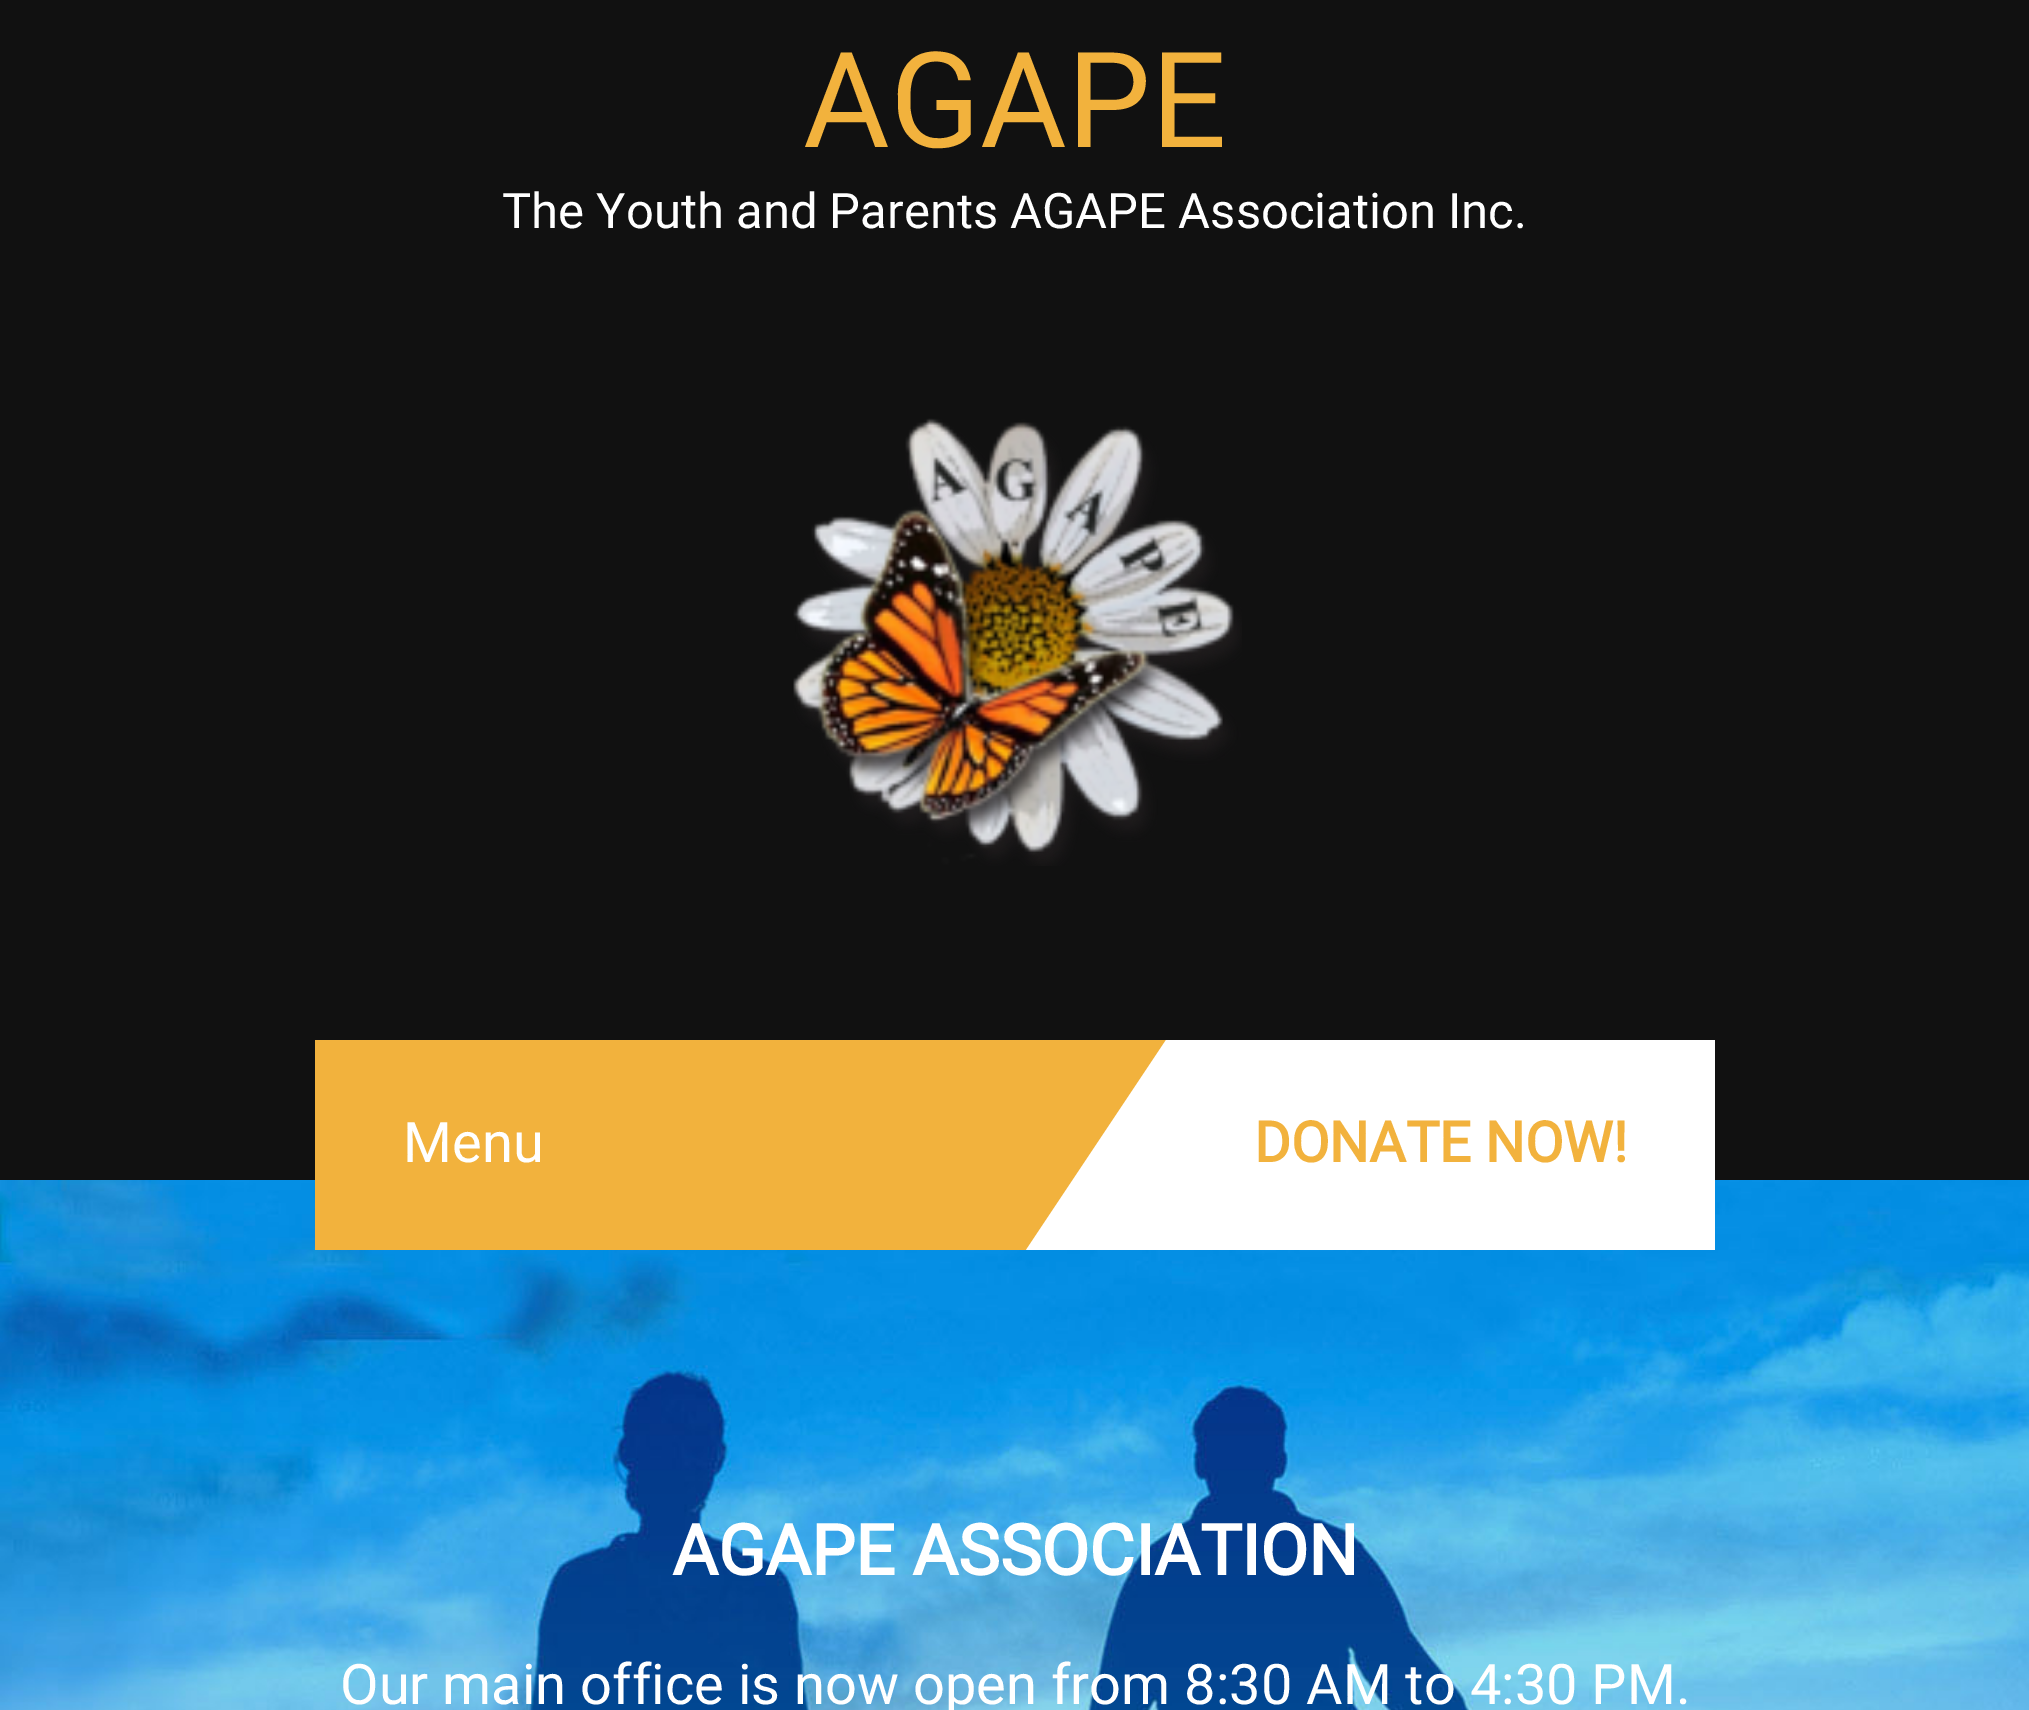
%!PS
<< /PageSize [2029 1710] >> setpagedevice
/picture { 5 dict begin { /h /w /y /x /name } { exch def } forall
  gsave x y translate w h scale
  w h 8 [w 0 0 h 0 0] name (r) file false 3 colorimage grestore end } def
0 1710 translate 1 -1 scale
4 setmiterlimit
1 setgray
0 0 2029 1710 rectfill
0.067 setgray
0 0 2029 1180 rectfill
/Roboto-Regular [133 0 0 -133 0 0] selectfont
0.949 0.698 0.239 setrgbcolor
803 147 moveto (AGAPE) show
/Roboto-Regular [49 0 0 -49 0 0] selectfont
1 setgray
502 228 moveto (The Youth and Parents AGAPE Association Inc.) show
(img1.rgb) 793 418 449 448 picture
(img2.rgb) 0 1180 2029 530 picture
0.949 0.698 0.239 setrgbcolor
315 1040 851 210 rectfill
/Roboto-Regular [56 0 0 -56 0 0] selectfont
1 setgray
403 1162 moveto (Menu) show
1166 1040 549 210 rectfill
newpath 1166 1040 moveto 1166 1250 lineto 1026 1250 lineto closepath fill
/Roboto-Bold [56 0 0 -56 0 0] selectfont
0.949 0.698 0.239 setrgbcolor
1254 1162 moveto (DONATE NOW!) show
/Roboto-Bold [70 0 0 -70 0 0] selectfont
1 setgray
672 1575 moveto (AGAPE ASSOCIATION) show
/Roboto-Regular [56 0 0 -56 0 0] selectfont
340 1704 moveto (Our main office is now open from 8:30 AM to 4:30 PM.) show
showpage
